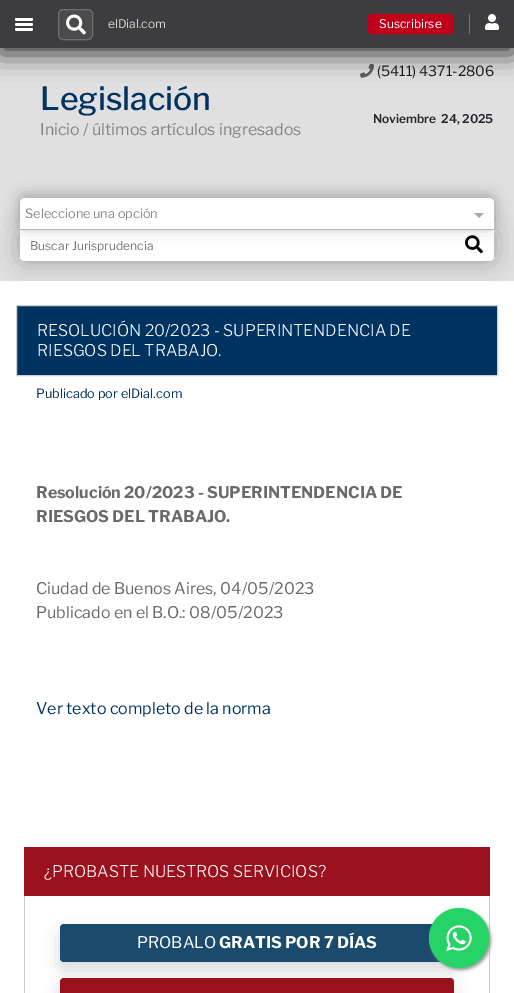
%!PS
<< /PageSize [514 993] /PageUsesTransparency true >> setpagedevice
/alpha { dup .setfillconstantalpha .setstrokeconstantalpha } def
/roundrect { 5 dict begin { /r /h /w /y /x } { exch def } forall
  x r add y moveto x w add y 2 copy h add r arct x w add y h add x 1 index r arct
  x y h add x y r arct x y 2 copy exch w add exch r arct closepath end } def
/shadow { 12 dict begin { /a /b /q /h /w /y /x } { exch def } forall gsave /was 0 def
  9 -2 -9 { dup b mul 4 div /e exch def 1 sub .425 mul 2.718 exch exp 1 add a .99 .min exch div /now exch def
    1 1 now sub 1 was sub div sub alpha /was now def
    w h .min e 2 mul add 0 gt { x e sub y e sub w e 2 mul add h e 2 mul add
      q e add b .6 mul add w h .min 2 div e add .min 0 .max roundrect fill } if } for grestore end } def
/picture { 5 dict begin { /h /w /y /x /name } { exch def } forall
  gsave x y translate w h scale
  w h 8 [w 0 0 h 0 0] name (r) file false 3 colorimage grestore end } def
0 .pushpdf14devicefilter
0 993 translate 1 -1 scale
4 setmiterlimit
0.878 0.878 0.882 setrgbcolor
0 0 514 993 rectfill
(img3.rgb) 360 63 14 15 picture
0 setgray
0 6 514 48 0 12.5 0.75 shadow
0.239 0.239 0.247 setrgbcolor
0 0 514 48 rectfill
1 setgray
15 18 18 3 1.5 roundrect fill
15 23 18 3 1.5 roundrect fill
15 28 18 3 1.5 roundrect fill
0.294 0.294 0.302 setrgbcolor
58.5 9.5 34 30 4.5 roundrect gsave fill grestore
0.435 0.439 0.447 setrgbcolor
stroke
(img1.rgb) 66 14 20 21 picture
/LibreFranklin-Regular [12 0 0 -12 0 0] selectfont
0.835 setgray
108 28 moveto (elDial.com) show
0.455 0.459 0.467 setrgbcolor
469 14 1 20 rectfill
0.753 0 0.106 setrgbcolor
368.5 14.5 84 19 2.5 roundrect gsave fill grestore
stroke
1 setgray
379 28 moveto (Suscribirse) show
(img2.rgb) 485 14 14 16 picture
/LibreFranklin-Medium [32 0 0 -32 0 0] selectfont
0 0.2 0.373 setrgbcolor
40 110 moveto (Legislación) show
/LibreFranklin-Regular [16 0 0 -16 0 0] selectfont
0.51 0.514 0.522 setrgbcolor
40 135 moveto (Inicio / últimos artículos ingresados) show
/LibreFranklin-Regular [14 0 0 -14 0 0] selectfont
0.102 0.09 0.106 setrgbcolor
377 76 moveto (\(5411\) 4371-2806) show
/LibreFranklin-SemiBold [12 0 0 -12 0 0] selectfont
0.129 0.145 0.161 setrgbcolor
373 123 moveto (Noviembre) show
441 123 moveto (24, 2025) show
0 setgray
20 230 474 31 5 12.5 0.3 shadow
1 setgray
newpath 20 230 moveto 494 230 lineto 494 256 lineto 494 259 492 261 489 261 curveto 25 261 lineto 22 261 20 259 20 256 curveto closepath fill
0 setgray
20 196 474 31 5 7.5 0.3 shadow
1 setgray
newpath 25 198 moveto 489 198 lineto 492 198 494 200 494 203 curveto 494 229 lineto 20 229 lineto 20 203 lineto 20 200 22 198 25 198 curveto closepath fill
/LibreFranklin-Regular [12.75 0 0 -12.75 0 0] selectfont
0.533 setgray
25 218 moveto (Seleccione una opción) show
0.667 setgray
newpath 474 213 moveto 484 213 lineto 479 218 lineto closepath fill
/LibreFranklin-Regular [12 0 0 -12 0 0] selectfont
0.459 setgray
30 250 moveto (Buscar Jurisprudencia) show
(img4.rgb) 465 235 18 19 picture
1 setgray
0 281 514 712 rectfill
0.8 setgray
489 896 1 97 rectfill
0 setgray
60 932 394 38 4 8 0.15 shadow
0.102 0.294 0.424 setrgbcolor
60 924 394 38 4 roundrect fill
0.6 setgray
431 910 60 60 30 1.5 1 shadow
0 setgray
60 986 394 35 4 8 0.15 shadow
0.145 0.827 0.4 setrgbcolor
newpath 459 938 30 0 360 arc closepath fill
(img5.rgb) 446 925 26 27 picture
0 0.2 0.373 setrgbcolor
newpath 16.5 305.5 moveto 497.5 305.5 lineto 497.5 375.5 lineto 16.5 375.5 lineto closepath gsave fill grestore
0.808 0.812 0.812 setrgbcolor
stroke
/LibreFranklin-Light [16 0 0 -16 0 0] selectfont
1 setgray
37 336 moveto (RESOLUCIÓN 20/2023 - SUPERINTENDENCIA DE) show
37 356 moveto (RIESGOS DEL TRABAJO.) show
/LibreFranklin-Regular [12.75 0 0 -12.75 0 0] selectfont
0 0.2 0.373 setrgbcolor
36 398 moveto (Publicado por elDial.com) show
/LibreFranklin-Bold [16 0 0 -16 0 0] selectfont
0.412 0.412 0.42 setrgbcolor
36 498 moveto (Resolución 20/2023 - SUPERINTENDENCIA DE) show
36 522 moveto (RIESGOS DEL TRABAJO.) show
/LibreFranklin-Regular [16 0 0 -16 0 0] selectfont
36 594 moveto (Ciudad de Buenos Aires, 04/05/2023) show
36 618 moveto (Publicado en el B.O.: 08/05/2023) show
0 0.2 0.373 setrgbcolor
36 714 moveto (Ver texto completo de la norma) show
0.604 0.067 0.114 setrgbcolor
24 847 466 49 rectfill
/LibreFranklin-Light [16 0 0 -16 0 0] selectfont
1 setgray
44 877 moveto (¿PROBASTE NUESTROS SERVICIOS?) show
0.8 setgray
24 896 1 97 rectfill
/LibreFranklin-Regular [16 0 0 -16 0 0] selectfont
1 setgray
137 948 moveto (PROBALO) show
/LibreFranklin-Bold [16 0 0 -16 0 0] selectfont
219 948 moveto (GRATIS POR 7 DÍAS) show
0.604 0.067 0.114 setrgbcolor
60 978 394 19 4 roundrect fill
.poppdf14devicefilter showpage
